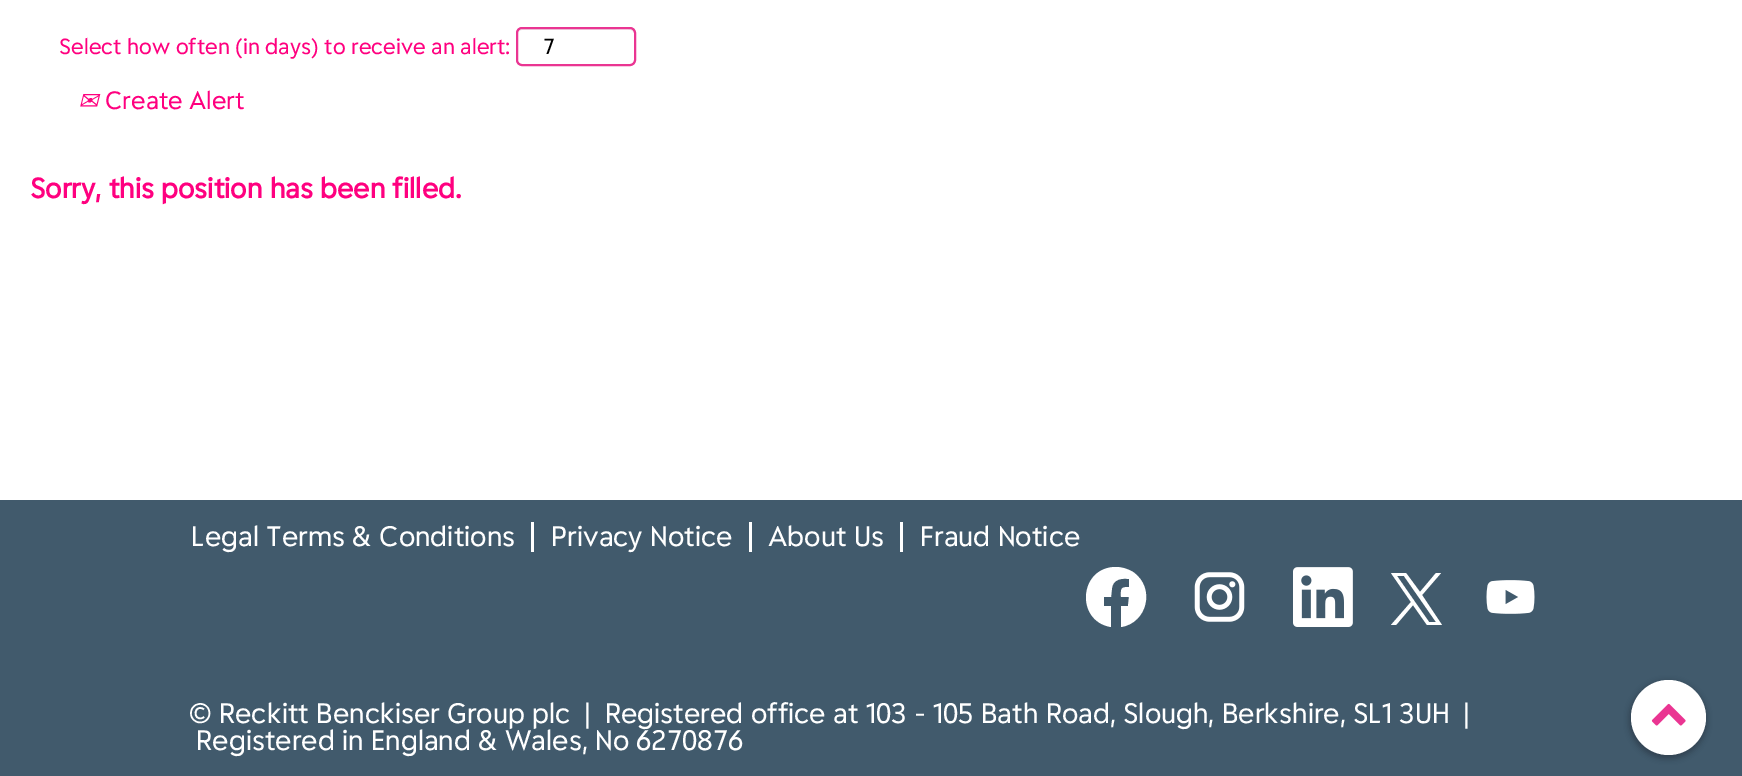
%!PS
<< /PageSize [1742 776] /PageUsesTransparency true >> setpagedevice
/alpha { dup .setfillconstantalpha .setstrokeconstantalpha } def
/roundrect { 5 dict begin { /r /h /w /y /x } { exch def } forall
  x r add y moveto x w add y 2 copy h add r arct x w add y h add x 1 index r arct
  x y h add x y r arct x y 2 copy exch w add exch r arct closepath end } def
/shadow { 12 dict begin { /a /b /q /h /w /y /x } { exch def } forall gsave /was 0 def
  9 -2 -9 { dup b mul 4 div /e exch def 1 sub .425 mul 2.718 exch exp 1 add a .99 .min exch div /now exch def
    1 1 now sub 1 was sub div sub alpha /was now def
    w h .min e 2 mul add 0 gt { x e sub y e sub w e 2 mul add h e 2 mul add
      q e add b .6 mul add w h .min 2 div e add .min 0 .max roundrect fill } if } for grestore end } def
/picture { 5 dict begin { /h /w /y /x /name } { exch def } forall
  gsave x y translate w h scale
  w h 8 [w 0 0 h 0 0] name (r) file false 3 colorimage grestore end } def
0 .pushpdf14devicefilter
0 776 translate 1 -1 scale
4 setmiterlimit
1 setgray
0 0 1742 776 rectfill
/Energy-Regular [21 0 0 -21 0 0] selectfont
1 0 0.498 setrgbcolor
59 54 moveto (Select how often \(in days\) to receive an alert:) show
0.925 setgray
newpath 522 30 moveto 612 30 lineto 618 30 632 27 634 33 curveto 634 63 lineto 635 62 635 61 635 60 curveto 635 34 lineto 635 31 633 29 630 29 curveto 523 29 lineto 520 29 518 31 518 34 curveto 518 32 520 30 522 30 curveto closepath fill
0.918 0.208 0.573 setrgbcolor
2 setlinewidth
517 28 118 37 5 roundrect stroke
0 setgray
543 54 moveto (7) show
/DejaVuSans-Italic [24 0 0 -24 0 0] selectfont
1 0 0.498 setrgbcolor
78 109 moveto (✉) show
/Energy-Regular [24 0 0 -24 0 0] selectfont
105 109 moveto (Create Alert) show
/Energy-Bold [27 0 0 -27 0 0] selectfont
30 198 moveto (Sorry, this position has been filled.) show
0.255 0.353 0.424 setrgbcolor
0 500 1742 276 rectfill
1 setgray
531 522 3 30 rectfill
/Energy-Regular [27 0 0 -27 0 0] selectfont
191 546 moveto (Legal Terms & Conditions) show
749 522 3 30 rectfill
551 546 moveto (Privacy Notice) show
900 522 3 30 rectfill
768 546 moveto (About Us) show
920 546 moveto (Fraud Notice) show
newpath 1116 567 moveto 1079 567 1075 621 1111 627 curveto 1111 606 lineto 1104 606 lineto 1104 597 lineto 1111 597 lineto 1112 588 lineto 1113 579 1122 578 1129 579 curveto 1129 587 lineto 1120 587 1121 589 1121 597 curveto 1129 597 lineto 1128 606 lineto 1121 606 lineto 1121 627 lineto 1147 623 1156 588 1133 572 curveto 1128 569 1122 567 1116 567 curveto closepath fill
(img1.rgb) 1194 572 51 50 picture
(img2.rgb) 1293 567 60 60 picture
newpath 1422 595 moveto 1441 573 lineto 1436 573 lineto 1420 592 lineto 1406 573 lineto 1391 573 lineto 1411 602 lineto 1391 625 lineto 1396 625 lineto 1413 605 lineto 1427 625 lineto 1442 625 lineto closepath 1415 602 moveto 1397 576 lineto 1404 576 lineto 1436 622 lineto 1429 622 lineto closepath fill
(img3.rgb) 1486 580 49 34 picture
189 723 moveto (© Reckitt Benckiser Group plc  |  Registered office at 103 - 105 Bath Road, Slough, Berkshire, SL1 3UH  |) show
196 750 moveto (Registered in England & Wales, No 6270876) show
0 setgray
1629 681 78 78 39 3 0.25 shadow
1 setgray
newpath 1668.5 717.5 37.5 0 360 arc closepath fill
(img4.rgb) 1651 703 35 23 picture
.poppdf14devicefilter showpage
